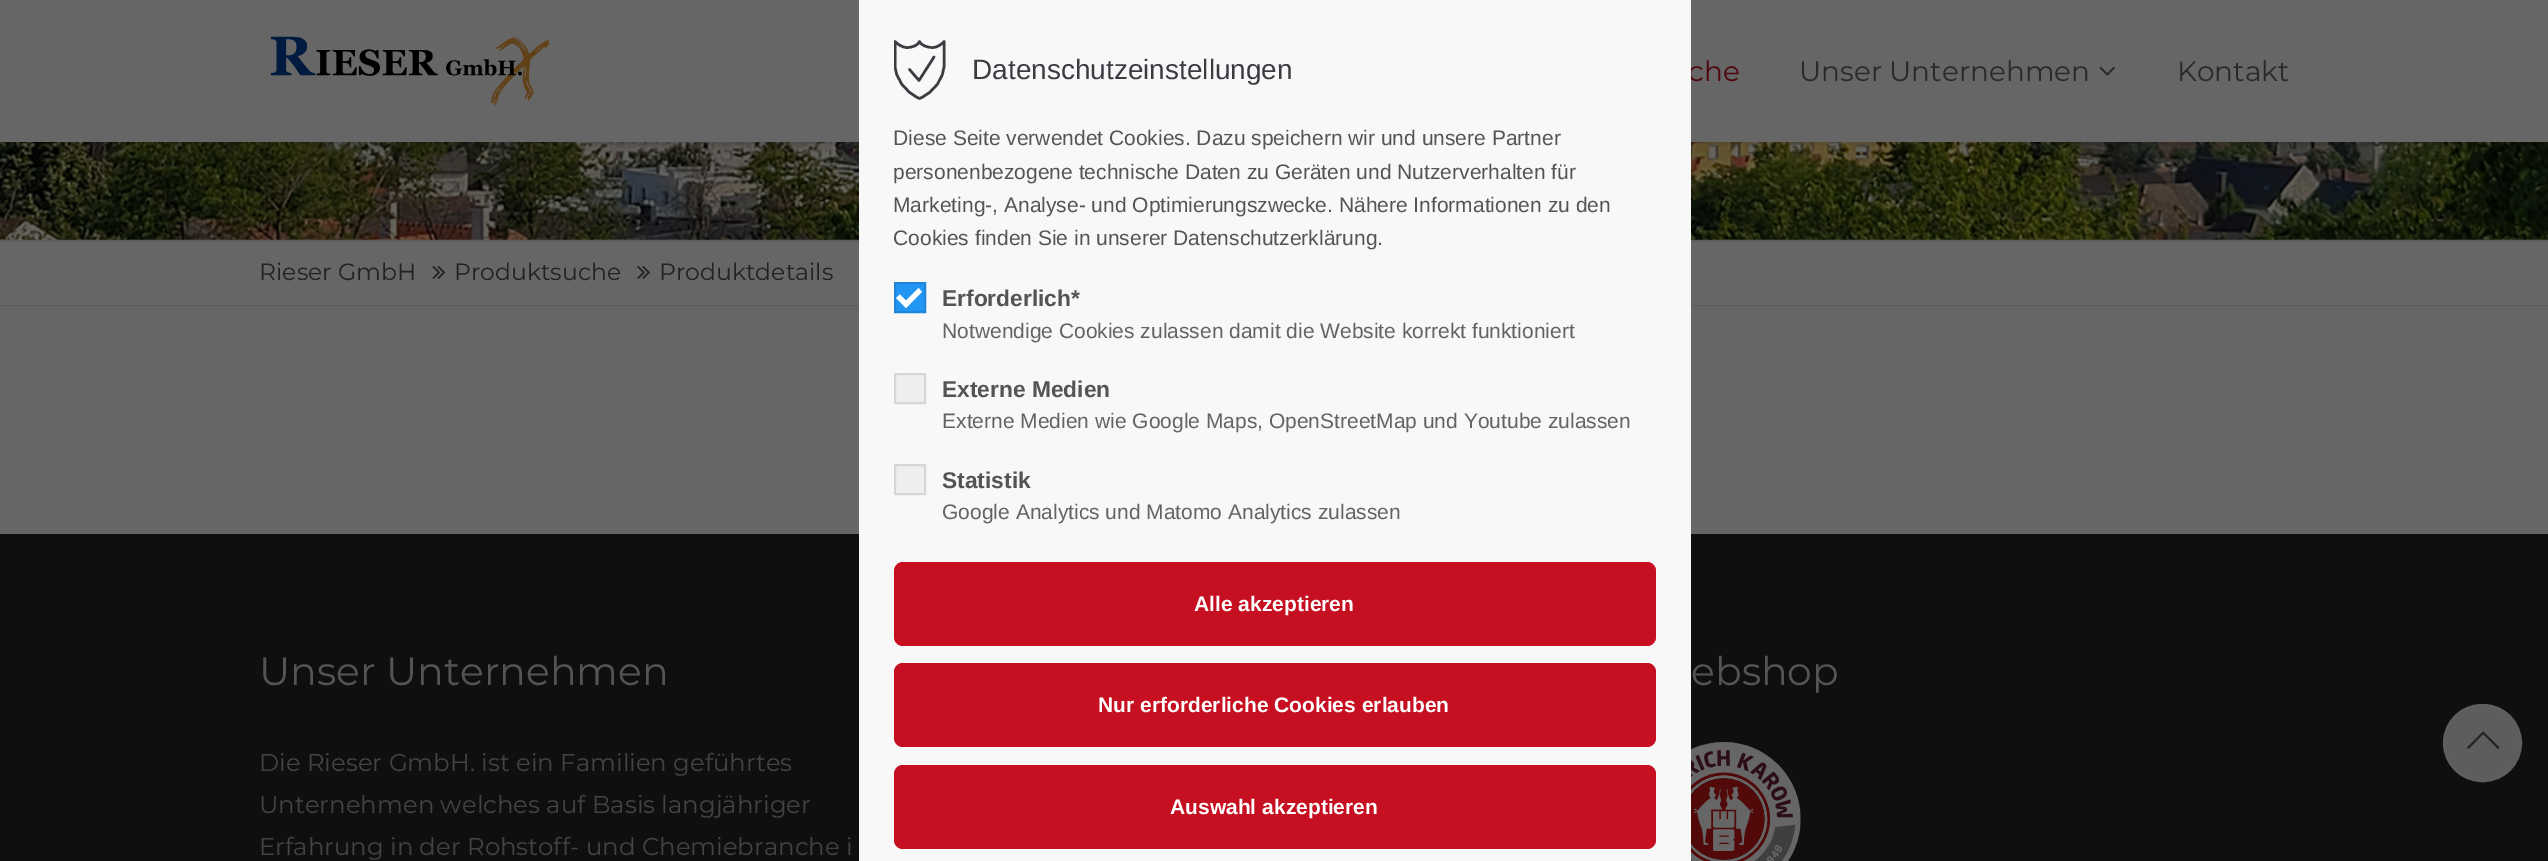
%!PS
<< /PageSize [2548 861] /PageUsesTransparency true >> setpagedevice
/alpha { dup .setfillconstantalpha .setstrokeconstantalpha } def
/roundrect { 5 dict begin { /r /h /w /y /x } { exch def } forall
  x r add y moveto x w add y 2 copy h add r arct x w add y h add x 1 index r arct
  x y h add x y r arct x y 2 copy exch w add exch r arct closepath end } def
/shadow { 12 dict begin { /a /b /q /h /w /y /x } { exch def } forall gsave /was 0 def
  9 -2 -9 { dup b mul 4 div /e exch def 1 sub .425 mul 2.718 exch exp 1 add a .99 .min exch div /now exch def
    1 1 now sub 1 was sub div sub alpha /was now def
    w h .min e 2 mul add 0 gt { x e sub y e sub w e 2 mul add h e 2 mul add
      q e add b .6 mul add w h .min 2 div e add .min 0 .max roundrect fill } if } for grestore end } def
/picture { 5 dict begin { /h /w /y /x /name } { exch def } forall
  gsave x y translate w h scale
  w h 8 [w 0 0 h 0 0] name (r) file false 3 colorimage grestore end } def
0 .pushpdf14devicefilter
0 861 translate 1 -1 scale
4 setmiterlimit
0.4 setgray
0 0 2548 861 rectfill
(img3.rgb) 0 142 2548 98 picture
0 setgray
-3 -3 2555 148 0 2 0.1 shadow
0.4 setgray
0 0 2548 142 rectfill
/Montserrat-Thin [28 0 0 -28 0 0] selectfont
0.31 0.024 0.051 setrgbcolor
1688 81 moveto (che) show
0.361 setgray
0 240 2548 2 rectfill
0 305 2548 1 rectfill
0.059 setgray
0 534 2548 327 rectfill
0.973 setgray
859 0 832 861 rectfill
gsave
894 40 53 60 rectclip
0.231 0.235 0.255 setrgbcolor
2.5 setlinewidth
1 setlinecap
1 setlinejoin
newpath 919.5 98.5 moveto 905 92 895 78.5 895 64.5 curveto 895 41.5 lineto 897.5 44 902 47.5 907 47.5 curveto 913 47.5 918 45 919.5 41.5 curveto 921 45 926.5 47.5 932.5 47.5 curveto 937.5 47.5 942 44 944 41.5 curveto 944 64.5 lineto 944 78.5 934.5 92 919.5 98.5 curveto closepath stroke
grestore
0.231 0.235 0.255 setrgbcolor
2.5 setlinewidth
1 setlinecap
1 setlinejoin
newpath 909.5 69.5 moveto 919 80.5 lineto 934 57 lineto stroke
/LiberationSans-Regular [28 0 0 -28 0 0] selectfont
0.231 0.235 0.259 setrgbcolor
972 79 moveto (Datenschutzeinstellungen) show
/LiberationSans-Regular [21 0 0 -21 0 0] selectfont
0.329 setgray
893 145 moveto (Diese Seite verwendet Cookies. Dazu speichern wir und unsere Partner) show
893 179 moveto (personenbezogene technische Daten zu Geräten und Nutzerverhalten für) show
893 212 moveto (Marketing-, Analyse- und Optimierungszwecke. Nähere Informationen zu den) show
893 245 moveto (Cookies finden Sie in unserer Datenschutzerklärung.) show
0.129 0.588 0.953 setrgbcolor
newpath 895 283 moveto 925 283 lineto 925 312 lineto 895 312 lineto closepath gsave fill grestore
0.118 0.529 0.859 setrgbcolor
2 setlinewidth
0 setlinecap
0 setlinejoin
stroke
1 setgray
newpath 918.5 288 moveto 922 292 lineto 906 308 lineto 902.5 304 lineto closepath fill
newpath 900 294.5 moveto 909.5 304 lineto 906 308 lineto 896 298 lineto closepath fill
/LiberationSans-Bold [22.75 0 0 -22.75 0 0] selectfont
0.329 setgray
942 306 moveto (Erforderlich*) show
/LiberationSans-Regular [21 0 0 -21 0 0] selectfont
0.388 setgray
942 338 moveto (Notwendige Cookies zulassen damit die Website korrekt funktioniert) show
0.933 setgray
newpath 895 374 moveto 925 374 lineto 925 403 lineto 895 403 lineto closepath gsave fill grestore
0.839 setgray
stroke
/LiberationSans-Bold [22.75 0 0 -22.75 0 0] selectfont
0.329 setgray
942 397 moveto (Externe Medien) show
/LiberationSans-Regular [21 0 0 -21 0 0] selectfont
0.388 setgray
942 428 moveto (Externe Medien wie Google Maps, OpenStreetMap und Youtube zulassen) show
0.933 setgray
newpath 895 465 moveto 925 465 lineto 925 494 lineto 895 494 lineto closepath gsave fill grestore
0.839 setgray
stroke
/LiberationSans-Bold [22.75 0 0 -22.75 0 0] selectfont
0.329 setgray
942 488 moveto (Statistik) show
/LiberationSans-Regular [21 0 0 -21 0 0] selectfont
0.388 setgray
942 519 moveto (Google Analytics und Matomo Analytics zulassen) show
0.776 0.059 0.125 setrgbcolor
894 562 762 84 9 roundrect fill
/LiberationSans-Bold [21 0 0 -21 0 0] selectfont
1 setgray
1194 611 moveto (Alle akzeptieren) show
0.776 0.059 0.125 setrgbcolor
894 663 762 84 9 roundrect fill
1 setgray
1098 712 moveto (Nur erforderliche Cookies erlauben) show
0.776 0.059 0.125 setrgbcolor
894 765 762 84 9 roundrect fill
1 setgray
1170 814 moveto (Auswahl akzeptieren) show
(img1.rgb) 270 36 280 70 picture
/Montserrat-Thin [28 0 0 -28 0 0] selectfont
0.165 setgray
1799 81 moveto (Unser Unternehmen) show
(img2.rgb) 2099 66 16 10 picture
2177 81 moveto (Kontakt) show
/Montserrat-Thin [23.5 0 0 -23.5 0 0] selectfont
0.133 setgray
259 280 moveto (Rieser GmbH) show
(img4.rgb) 432 265 14 14 picture
454 280 moveto (Produktsuche) show
(img5.rgb) 637 265 13 14 picture
659 280 moveto (Produktdetails) show
/Montserrat-Thin [39.4 0 0 -39.4 0 0] selectfont
0.329 setgray
259 685 moveto (Unser Unternehmen) show
/Montserrat-Thin [24.4 0 0 -24.4 0 0] selectfont
0.263 setgray
259 771 moveto (Die Rieser GmbH. ist ein Familien geführtes) show
259 813 moveto (Unternehmen welches auf Basis langjähriger) show
259 855 moveto (Erfahrung in der Rohstoff- und Chemiebranche i) show
/Montserrat-Thin [39.4 0 0 -39.4 0 0] selectfont
0.329 setgray
1691 685 moveto (ebshop) show
(img6.rgb) 1691 742 110 119 picture
0.365 setgray
2444 705 77 76 38 roundrect gsave fill grestore
0.369 0.373 0.369 setrgbcolor
stroke
0.133 setgray
newpath 2499.5 747.5 moveto 2498 749 lineto 2483 734 lineto 2468.5 749 lineto 2467 747.5 lineto 2483 731.5 lineto closepath fill
.poppdf14devicefilter showpage
